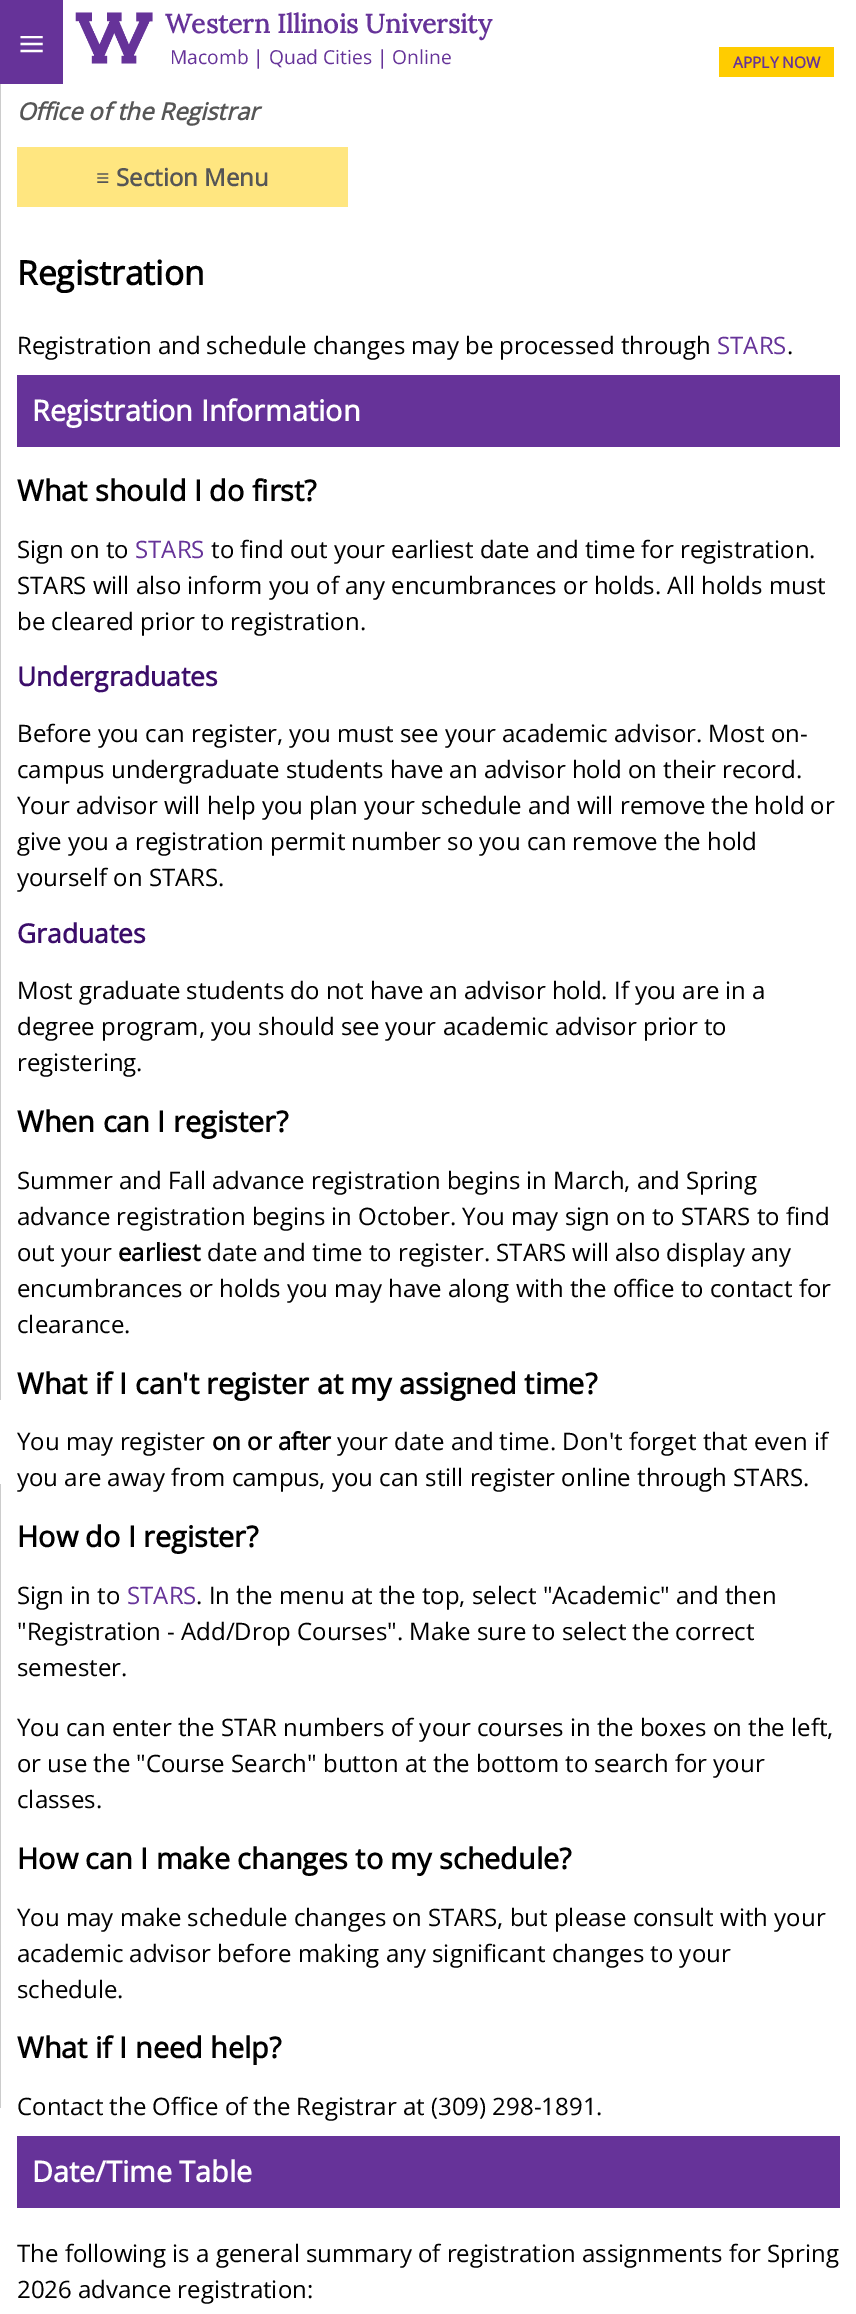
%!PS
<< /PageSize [856 2314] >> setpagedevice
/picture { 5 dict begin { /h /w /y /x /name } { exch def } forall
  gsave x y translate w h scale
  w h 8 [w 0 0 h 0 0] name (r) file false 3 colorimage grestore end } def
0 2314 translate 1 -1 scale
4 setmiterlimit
1 setgray
0 0 856 2314 rectfill
0.4 0.2 0.6 setrgbcolor
0 0 63 84 rectfill
/LiberationSerif-Regular [48 0 0 -48 0 0] selectfont
1 setgray
18 60 moveto (≡) show
(img1.rgb) 75 12 78 52 picture
/Lora-Bold [26.4 0 0 -26.4 0 0] selectfont
0.4 0.2 0.6 setrgbcolor
165 33 moveto (Western Illinois University) show
/OpenSans-Regular [19.25 0 0 -19.25 0 0] selectfont
170 64 moveto (Macomb | Quad Cities | Online) show
1 0.8 0 setrgbcolor
719 47 115 30 rectfill
/OpenSans-Bold [15.5 0 0 -15.5 0 0] selectfont
0.4 0.2 0.6 setrgbcolor
733 68 moveto (APPLY NOW) show
0.8 setgray
0 84 1 1316 rectfill
0 1484 1 624 rectfill
/OpenSans-BoldItalic [23.75 0 0 -23.75 0 0] selectfont
0.337 setgray
17 120 moveto (Office of the Registrar) show
1 0.902 0.502 setrgbcolor
17 147 331 60 rectfill
/LiberationSerif-Bold [24 0 0 -24 0 0] selectfont
0.337 setgray
96 186 moveto (≡) show
/OpenSans-Bold [24 0 0 -24 0 0] selectfont
116 186 moveto (Section Menu) show
/OpenSans-Bold [33.5 0 0 -33.5 0 0] selectfont
0 setgray
17 285 moveto (Registration) show
/OpenSans-Regular [24 0 0 -24 0 0] selectfont
17 354 moveto (Registration and schedule changes may be processed through) show
0.4 0.2 0.6 setrgbcolor
717 354 moveto (STARS) show
0 setgray
787 354 moveto (.) show
0.4 0.2 0.6 setrgbcolor
17 375 823 72 rectfill
/OpenSans-Bold [28.8 0 0 -28.8 0 0] selectfont
1 setgray
32 421 moveto (Registration Information) show
0 setgray
17 501 moveto (What should I do first?) show
/OpenSans-Regular [24 0 0 -24 0 0] selectfont
17 558 moveto (Sign on to) show
0.4 0.2 0.6 setrgbcolor
135 558 moveto (STARS) show
0 setgray
211 558 moveto (to find out your earliest date and time for registration.) show
17 594 moveto (STARS will also inform you of any encumbrances or holds. All holds must) show
17 630 moveto (be cleared prior to registration.) show
/OpenSans-Bold [26.4 0 0 -26.4 0 0] selectfont
0.231 0.051 0.416 setrgbcolor
17 686 moveto (Undergraduates) show
/OpenSans-Regular [24 0 0 -24 0 0] selectfont
0 setgray
17 742 moveto (Before you can register, you must see your academic advisor. Most on-) show
17 778 moveto (campus undergraduate students have an advisor hold on their record.) show
17 814 moveto (Your advisor will help you plan your schedule and will remove the hold or) show
17 850 moveto (give you a registration permit number so you can remove the hold) show
17 886 moveto (yourself on STARS.) show
/OpenSans-Bold [26.4 0 0 -26.4 0 0] selectfont
0.231 0.051 0.416 setrgbcolor
17 943 moveto (Graduates) show
/OpenSans-Regular [24 0 0 -24 0 0] selectfont
0 setgray
17 999 moveto (Most graduate students do not have an advisor hold. If you are in a) show
17 1035 moveto (degree program, you should see your academic advisor prior to) show
17 1071 moveto (registering.) show
/OpenSans-Bold [28.8 0 0 -28.8 0 0] selectfont
17 1132 moveto (When can I register?) show
/OpenSans-Regular [24 0 0 -24 0 0] selectfont
17 1189 moveto (Summer and Fall advance registration begins in March, and Spring) show
17 1225 moveto (advance registration begins in October. You may sign on to STARS to find) show
17 1261 moveto (out your) show
/OpenSans-Bold [24 0 0 -24 0 0] selectfont
118 1261 moveto (earliest) show
/OpenSans-Regular [24 0 0 -24 0 0] selectfont
207 1261 moveto (date and time to register. STARS will also display any) show
17 1297 moveto (encumbrances or holds you may have along with the office to contact for) show
17 1333 moveto (clearance.) show
/OpenSans-Bold [28.8 0 0 -28.8 0 0] selectfont
17 1394 moveto (What if I can't register at my assigned time?) show
/OpenSans-Regular [24 0 0 -24 0 0] selectfont
17 1450 moveto (You may register) show
/OpenSans-Bold [24 0 0 -24 0 0] selectfont
212 1450 moveto (on or after) show
/OpenSans-Regular [24 0 0 -24 0 0] selectfont
337 1450 moveto (your date and time. Don't forget that even if) show
17 1486 moveto (you are away from campus, you can still register online through STARS.) show
/OpenSans-Bold [28.8 0 0 -28.8 0 0] selectfont
17 1547 moveto (How do I register?) show
/OpenSans-Regular [24 0 0 -24 0 0] selectfont
17 1604 moveto (Sign in to) show
0.4 0.2 0.6 setrgbcolor
127 1604 moveto (STARS) show
0 setgray
196 1604 moveto (. In the menu at the top, select "Academic" and then) show
17 1640 moveto ("Registration - Add/Drop Courses". Make sure to select the correct) show
17 1676 moveto (semester.) show
17 1736 moveto (You can enter the STAR numbers of your courses in the boxes on the left,) show
17 1772 moveto (or use the "Course Search" button at the bottom to search for your) show
17 1808 moveto (classes.) show
/OpenSans-Bold [28.8 0 0 -28.8 0 0] selectfont
17 1869 moveto (How can I make changes to my schedule?) show
/OpenSans-Regular [24 0 0 -24 0 0] selectfont
17 1926 moveto (You may make schedule changes on STARS, but please consult with your) show
17 1962 moveto (academic advisor before making any significant changes to your) show
17 1998 moveto (schedule.) show
/OpenSans-Bold [28.8 0 0 -28.8 0 0] selectfont
17 2058 moveto (What if I need help?) show
/OpenSans-Regular [24 0 0 -24 0 0] selectfont
17 2115 moveto (Contact the Office of the Registrar at \(309\) 298-1891.) show
0.4 0.2 0.6 setrgbcolor
17 2136 823 72 rectfill
/OpenSans-Bold [28.8 0 0 -28.8 0 0] selectfont
1 setgray
32 2182 moveto (Date/Time Table) show
/OpenSans-Regular [24 0 0 -24 0 0] selectfont
0 setgray
17 2262 moveto (The following is a general summary of registration assignments for Spring) show
17 2298 moveto (2026 advance registration:) show
showpage
